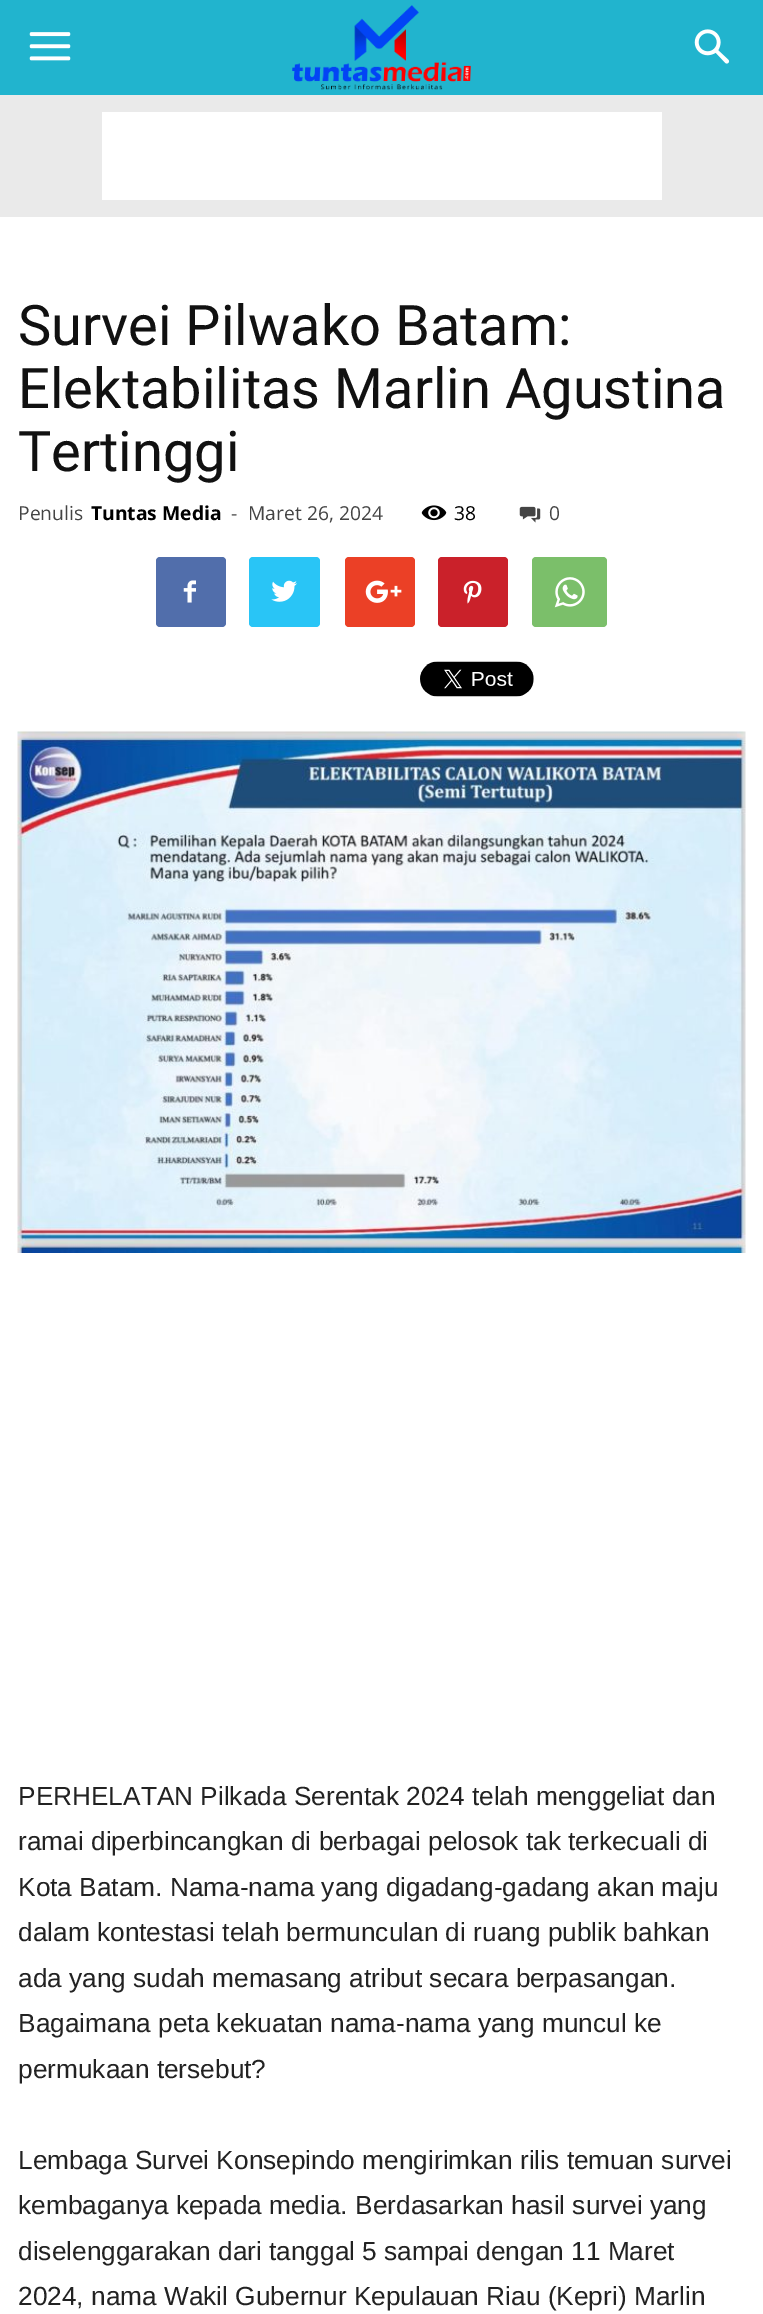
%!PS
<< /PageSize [763 2314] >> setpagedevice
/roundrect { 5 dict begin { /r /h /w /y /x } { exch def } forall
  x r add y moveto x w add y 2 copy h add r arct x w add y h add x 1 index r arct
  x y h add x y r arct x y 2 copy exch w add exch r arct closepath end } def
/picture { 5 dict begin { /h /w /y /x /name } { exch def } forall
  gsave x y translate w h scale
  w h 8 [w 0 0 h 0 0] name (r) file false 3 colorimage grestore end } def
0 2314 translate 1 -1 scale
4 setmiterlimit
1 setgray
0 0 763 2314 rectfill
0.129 0.706 0.808 setrgbcolor
0 0 763 95 rectfill
(img1.rgb) 29 32 42 29 picture
(img2.rgb) 292 5 179 85 picture
(img3.rgb) 694 29 36 35 picture
0.918 setgray
0 95 763 122 rectfill
1 setgray
102 112 560 88 rectfill
/Roboto-Regular [56 0 0 -56 0 0] selectfont
0.067 setgray
18 345 moveto (Survei Pilwako Batam:) show
18 408 moveto (Elektabilitas Marlin Agustina) show
18 471 moveto (Tertinggi) show
/OpenSans-Regular [19.25 0 0 -19.25 0 0] selectfont
0.267 setgray
18 520 moveto (Penulis) show
/OpenSans-Bold [19.25 0 0 -19.25 0 0] selectfont
0 setgray
91 520 moveto (Tuntas Media) show
/OpenSans-Regular [19.25 0 0 -19.25 0 0] selectfont
0.267 setgray
231 520 moveto (-) show
248 520 moveto (Maret 26, 2024) show
(img4.rgb) 421 505 26 16 picture
0 setgray
454 520 moveto (38) show
(img5.rgb) 519 506 22 17 picture
0.267 setgray
549 520 moveto (0) show
0.318 0.431 0.671 setrgbcolor
156 557 70 70 4 roundrect fill
(img6.rgb) 183 580 13 23 picture
0.161 0.773 0.965 setrgbcolor
249 557 71 70 4 roundrect fill
(img7.rgb) 271 580 26 22 picture
0.922 0.251 0.149 setrgbcolor
345 557 70 70 4 roundrect fill
(img8.rgb) 365 580 37 23 picture
0.792 0.129 0.165 setrgbcolor
438 557 70 70 4 roundrect fill
(img9.rgb) 463 580 19 24 picture
0.482 0.749 0.416 setrgbcolor
532 557 75 70 4 roundrect fill
(img10.rgb) 554 577 31 31 picture
(img11.rgb) 420 661 114 36 picture
(img12.rgb) 17 731 729 522 picture
/LiberationSans-Regular [26.25 0 0 -26.25 0 0] selectfont
0.133 setgray
18 1805 moveto (PERHELATAN Pilkada Serentak 2024 telah menggeliat dan) show
18 1850 moveto (ramai diperbincangkan di berbagai pelosok tak terkecuali di) show
18 1896 moveto (Kota Batam. Nama-nama yang digadang-gadang akan maju) show
18 1941 moveto (dalam kontestasi telah bermunculan di ruang publik bahkan) show
18 1987 moveto (ada yang sudah memasang atribut secara berpasangan.) show
18 2032 moveto (Bagaimana peta kekuatan nama-nama yang muncul ke) show
18 2078 moveto (permukaan tersebut?) show
18 2169 moveto (Lembaga Survei Konsepindo mengirimkan rilis temuan survei) show
18 2214 moveto (kembaganya kepada media. Berdasarkan hasil survei yang) show
18 2260 moveto (diselenggarakan dari tanggal 5 sampai dengan 11 Maret) show
18 2305 moveto (2024, nama Wakil Gubernur Kepulauan Riau \(Kepri\) Marlin) show
showpage
